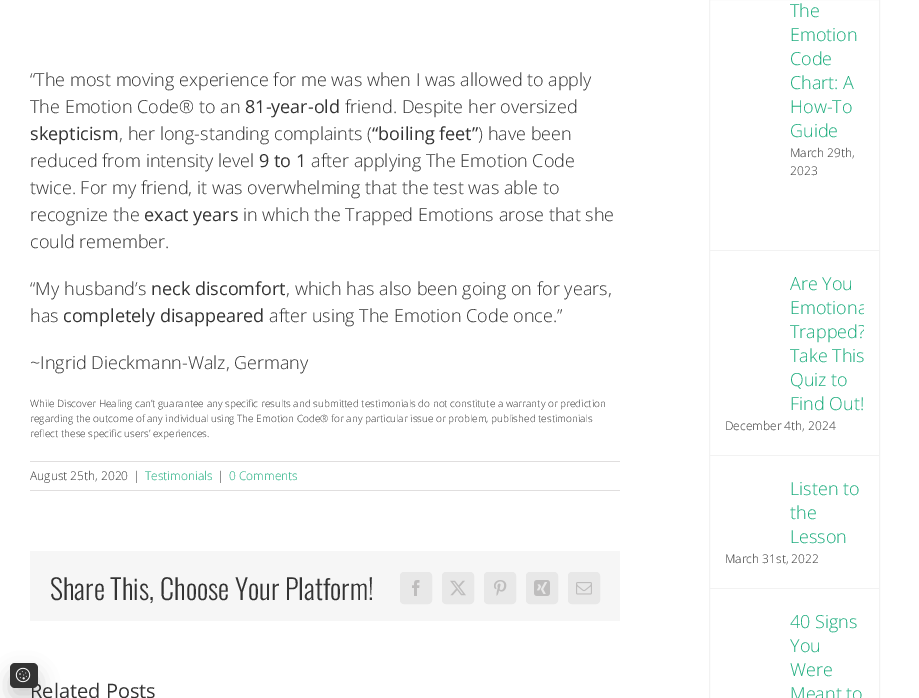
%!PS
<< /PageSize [919 698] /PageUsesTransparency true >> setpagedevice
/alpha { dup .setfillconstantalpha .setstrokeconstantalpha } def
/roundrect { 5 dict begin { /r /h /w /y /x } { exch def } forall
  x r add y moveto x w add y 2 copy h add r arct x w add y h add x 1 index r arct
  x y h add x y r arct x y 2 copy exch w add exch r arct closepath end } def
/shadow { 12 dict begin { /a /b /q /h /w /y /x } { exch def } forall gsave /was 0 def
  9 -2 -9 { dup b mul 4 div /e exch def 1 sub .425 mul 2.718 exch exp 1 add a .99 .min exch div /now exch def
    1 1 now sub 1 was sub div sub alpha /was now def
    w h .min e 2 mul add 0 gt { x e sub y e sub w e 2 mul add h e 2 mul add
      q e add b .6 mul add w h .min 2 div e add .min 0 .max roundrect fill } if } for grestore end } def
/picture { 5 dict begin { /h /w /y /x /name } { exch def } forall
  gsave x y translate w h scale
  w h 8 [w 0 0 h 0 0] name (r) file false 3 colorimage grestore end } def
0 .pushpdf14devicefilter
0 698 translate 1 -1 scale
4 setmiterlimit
1 setgray
0 0 919 698 rectfill
/OpenSans-Light [18 0 0 -18 0 0] selectfont
0.2 setgray
30 86 moveto (“The most moving experience for me was when I was allowed to apply) show
30 113 moveto (The Emotion Code® to an) show
/OpenSans-Regular [18 0 0 -18 0 0] selectfont
245 113 moveto (81-year-old) show
/OpenSans-Light [18 0 0 -18 0 0] selectfont
345 113 moveto (friend. Despite her oversized) show
/OpenSans-Regular [18 0 0 -18 0 0] selectfont
30 140 moveto (skepticism) show
/OpenSans-Light [18 0 0 -18 0 0] selectfont
119 140 moveto (, her long-standing complaints \() show
/OpenSans-Regular [18 0 0 -18 0 0] selectfont
372 140 moveto (“boiling feet”) show
/OpenSans-Light [18 0 0 -18 0 0] selectfont
478 140 moveto (\) have been) show
30 167 moveto (reduced from intensity level) show
/OpenSans-Regular [18 0 0 -18 0 0] selectfont
259 167 moveto (9 to 1) show
/OpenSans-Light [18 0 0 -18 0 0] selectfont
311 167 moveto (after applying The Emotion Code) show
30 194 moveto (twice. For my friend, it was overwhelming that the test was able to) show
30 221 moveto (recognize the) show
/OpenSans-Regular [18 0 0 -18 0 0] selectfont
144 221 moveto (exact years) show
/OpenSans-Light [18 0 0 -18 0 0] selectfont
243 221 moveto (in which the Trapped Emotions arose that she) show
30 248 moveto (could remember.) show
30 295 moveto (“My husband’s) show
/OpenSans-Regular [18 0 0 -18 0 0] selectfont
151 295 moveto (neck discomfort) show
/OpenSans-Light [18 0 0 -18 0 0] selectfont
286 295 moveto (, which has also been going on for years,) show
30 322 moveto (has) show
/OpenSans-Regular [18 0 0 -18 0 0] selectfont
63 322 moveto (completely disappeared) show
/OpenSans-Light [18 0 0 -18 0 0] selectfont
269 322 moveto (after using The Emotion Code once.”) show
30 369 moveto (~Ingrid Dieckmann-Walz, Germany) show
/OpenSans-Light [10 0 0 -10 0 0] selectfont
30 407 moveto (While Discover Healing can’t guarantee any specific results and submitted testimonials do not constitute a warranty or prediction) show
30 422 moveto (regarding the outcome of any individual using The Emotion Code® for any particular issue or problem, published testimonials) show
30 437 moveto (reflect these specific users’ experiences.) show
0.878 0.871 0.871 setrgbcolor
30 461 590 1 rectfill
30 490 590 1 rectfill
/OpenSans-Light [12 0 0 -12 0 0] selectfont
0.2 setgray
30 480 moveto (August 25th, 2020) show
133 480 moveto (|) show
0.098 0.671 0.482 setrgbcolor
145 480 moveto (Testimonials) show
0.2 setgray
217 480 moveto (|) show
0.098 0.671 0.482 setrgbcolor
229 480 moveto (0 Comments) show
0.965 setgray
30 551 590 70 rectfill
/Oswald-Light [28 0 0 -28 0 0] selectfont
0.2 setgray
50 600 moveto (Share This, Choose Your Platform!) show
0.91 setgray
400.5 572.5 31 31 3.5 roundrect gsave fill grestore
stroke
(img1.rgb) 412 580 8 16 picture
442.5 572.5 31 31 3.5 roundrect gsave fill grestore
stroke
(img2.rgb) 450 580 16 16 picture
484.5 572.5 31 31 3.5 roundrect gsave fill grestore
stroke
(img3.rgb) 494 580 13 16 picture
526.5 572.5 31 31 3.5 roundrect gsave fill grestore
stroke
(img4.rgb) 534 580 16 16 picture
568.5 572.5 31 31 3.5 roundrect gsave fill grestore
stroke
(img5.rgb) 576 582 16 13 picture
/OpenSans-Regular [20 0 0 -20 0 0] selectfont
0.2 setgray
30 698 moveto (Related Posts) show
0.949 setgray
709.5 -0.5 170 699 rectstroke
710 250 169 1 rectfill
/OpenSans-Light [18 0 0 -18 0 0] selectfont
0.098 0.671 0.482 setrgbcolor
790 17 moveto (The) show
790 41 moveto (Emotion) show
790 65 moveto (Code) show
790 89 moveto (Chart: A) show
790 113 moveto (How-To) show
790 137 moveto (Guide) show
/OpenSans-Light [12 0 0 -12 0 0] selectfont
0.2 setgray
790 157 moveto (March 29th,) show
790 175 moveto (2023) show
0.949 setgray
710 455 169 1 rectfill
/OpenSans-Light [18 0 0 -18 0 0] selectfont
0.098 0.671 0.482 setrgbcolor
790 290 moveto (Are You) show
gsave
790 271 74 144 rectclip
790 314 moveto (Emotiona) show
790 338 moveto (Trapped?) show
grestore
790 362 moveto (Take This) show
790 386 moveto (Quiz to) show
790 410 moveto (Find Out!) show
/OpenSans-Light [12 0 0 -12 0 0] selectfont
0.2 setgray
725 430 moveto (December 4th, 2024) show
0.949 setgray
710 588 169 1 rectfill
/OpenSans-Light [18 0 0 -18 0 0] selectfont
0.098 0.671 0.482 setrgbcolor
790 495 moveto (Listen to) show
790 519 moveto (the) show
790 543 moveto (Lesson) show
/OpenSans-Light [12 0 0 -12 0 0] selectfont
0.2 setgray
725 563 moveto (March 31st, 2022) show
/OpenSans-Light [18 0 0 -18 0 0] selectfont
0.098 0.671 0.482 setrgbcolor
790 628 moveto (40 Signs) show
790 652 moveto (You) show
790 676 moveto (Were) show
790 700 moveto (Meant to) show
0 setgray
10 673 28 25 5 10 0.2 shadow
0.2 setgray
10 663 28 25 5 roundrect fill
(img6.rgb) 15 667 16 16 picture
.poppdf14devicefilter showpage
